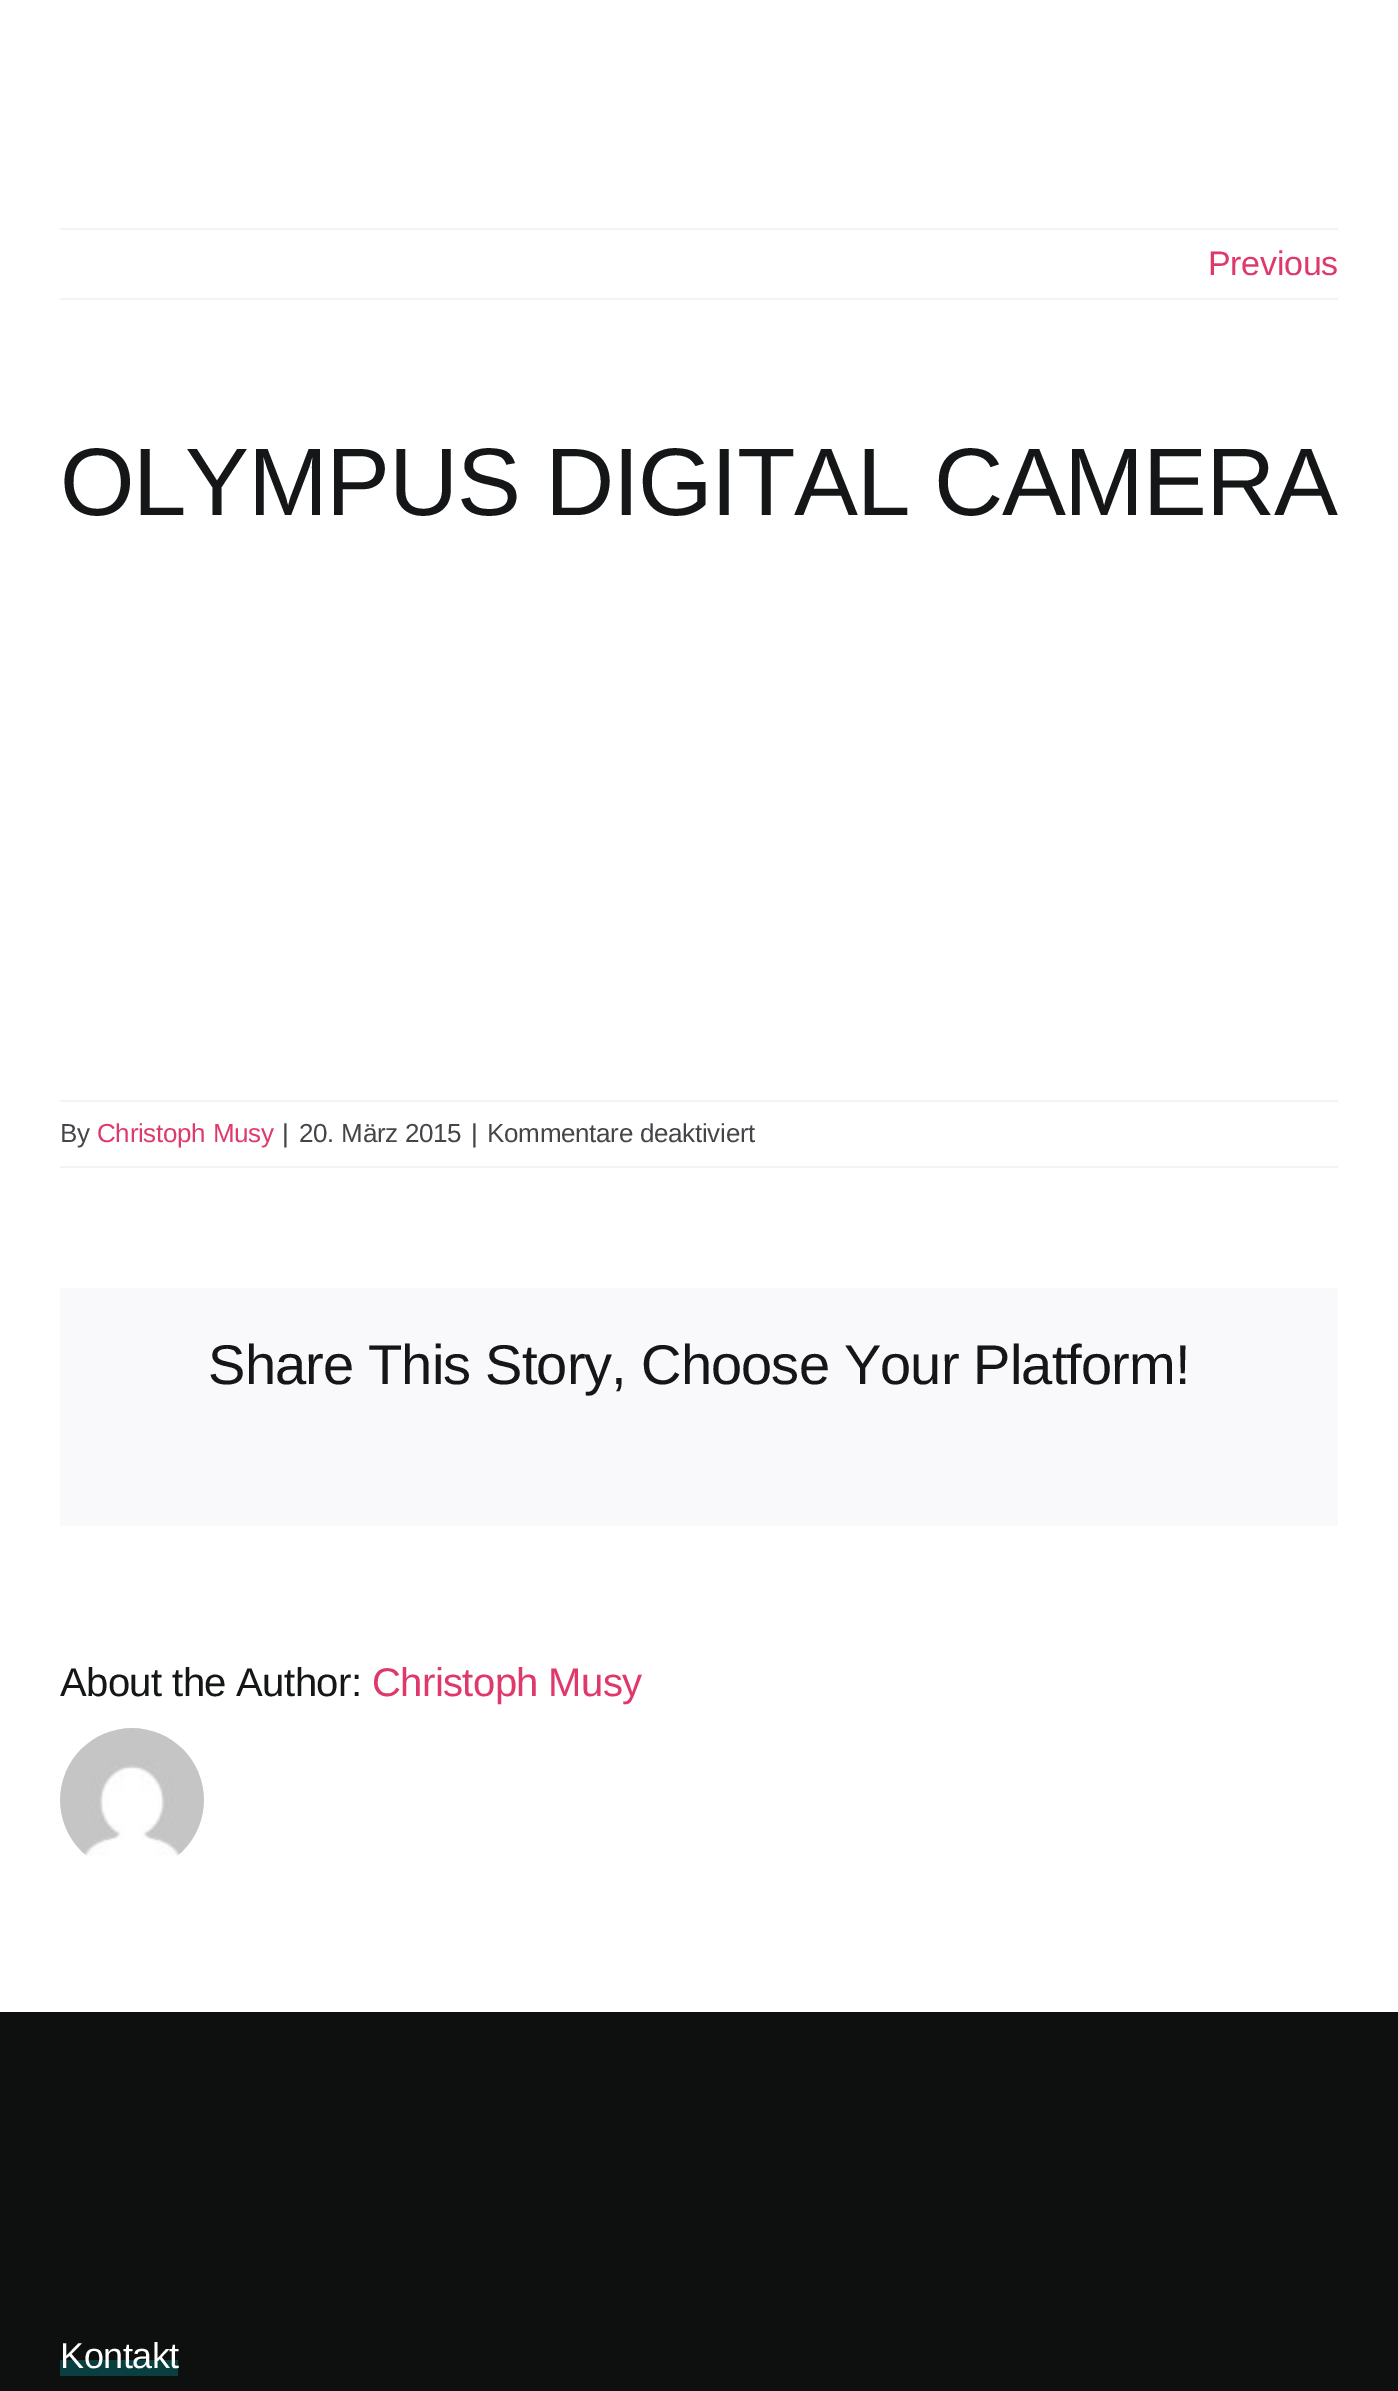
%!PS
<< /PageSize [1398 2391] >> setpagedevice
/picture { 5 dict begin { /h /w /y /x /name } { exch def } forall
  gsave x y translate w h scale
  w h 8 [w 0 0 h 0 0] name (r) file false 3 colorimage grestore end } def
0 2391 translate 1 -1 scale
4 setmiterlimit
1 setgray
0 0 1398 2391 rectfill
0.949 0.953 0.961 setrgbcolor
60 228 1278 2 rectfill
60 298 1278 2 rectfill
/LiberationSans-Regular [34 0 0 -34 0 0] selectfont
0.875 0.224 0.42 setrgbcolor
1208 275 moveto -0.3 0 (Previous) ashow
/LiberationSans-Regular [96 0 0 -96 0 0] selectfont
0.078 0.086 0.09 setrgbcolor
60 515 moveto -1.4 0 (OLYMPUS DIGITAL CAMERA) ashow
0.949 0.953 0.961 setrgbcolor
60 1100 1278 2 rectfill
60 1166 1278 2 rectfill
/LiberationSans-Regular [26 0 0 -26 0 0] selectfont
0.263 0.271 0.286 setrgbcolor
60 1142 moveto -0.3 0 (By) ashow
0.875 0.224 0.42 setrgbcolor
97 1142 moveto -0.3 0 (Christoph Musy) ashow
0.263 0.271 0.286 setrgbcolor
282 1142 moveto -0.3 0 (|) ashow
299 1142 moveto -0.3 0 (20. März 2015) ashow
471 1142 moveto -0.3 0 (|) ashow
487 1142 moveto -0.3 0 (Kommentare deaktiviert) ashow
0.976 0.976 0.984 setrgbcolor
60 1288 1278 238 rectfill
/LiberationSans-Regular [56 0 0 -56 0 0] selectfont
0.078 0.086 0.09 setrgbcolor
208 1384 moveto -0.85 0 (Share This Story, Choose Your Platform!) ashow
/LiberationSans-Regular [40 0 0 -40 0 0] selectfont
60 1696 moveto -0.6 0 (About the Author:) ashow
0.875 0.224 0.42 setrgbcolor
372 1696 moveto -0.6 0 (Christoph Musy) ashow
(img1.rgb) 60 1728 144 128 picture
0.055 0.063 0.063 setrgbcolor
0 2012 1398 379 rectfill
0.039 0.247 0.247 setrgbcolor
60 2360 118 16 rectfill
/LiberationSans-Regular [36 0 0 -36 0 0] selectfont
1 setgray
60 2368 moveto -0.5 0 (Kontakt) ashow
showpage
